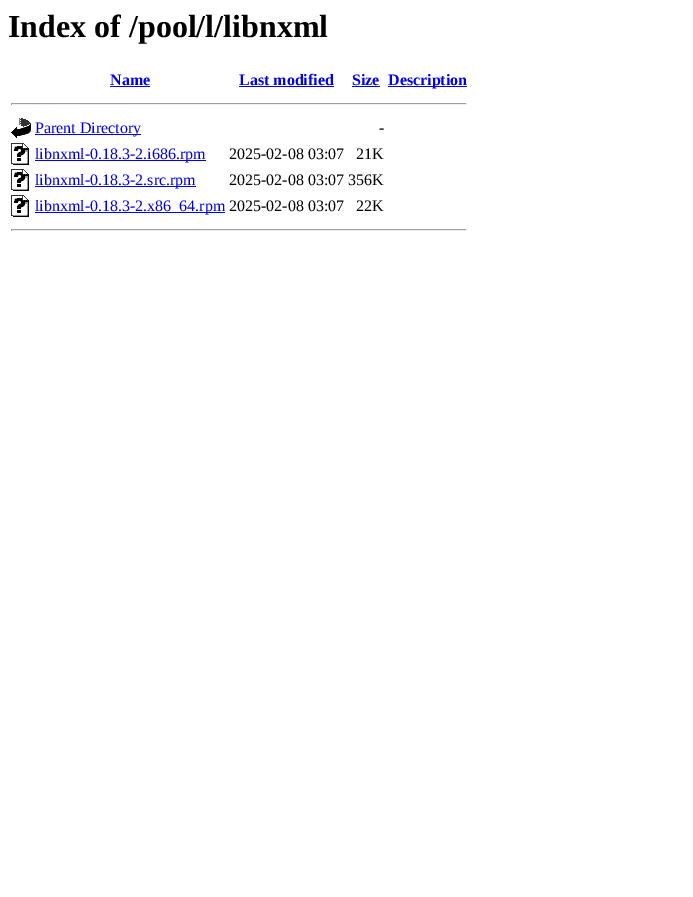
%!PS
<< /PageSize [693 897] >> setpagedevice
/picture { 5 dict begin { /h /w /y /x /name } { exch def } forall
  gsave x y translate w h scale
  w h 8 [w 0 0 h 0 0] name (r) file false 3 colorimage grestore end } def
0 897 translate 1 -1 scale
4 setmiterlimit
1 setgray
0 0 693 897 rectfill
/LiberationSerif-Bold [32 0 0 -32 0 0] selectfont
0 setgray
8 37 moveto (Index of /pool/l/libnxml) show
/LiberationSerif-Bold [16 0 0 -16 0 0] selectfont
0 0 0.933 setrgbcolor
110 85 moveto (Name) show
110 86 40 1 rectfill
239 85 moveto (Last modified) show
239 86 95 1 rectfill
352 85 moveto (Size) show
352 86 28 1 rectfill
388 86 79 1 rectfill
388 85 moveto (Description) show
0.624 setgray
11 103 456 1 rectfill
0.933 setgray
466 103 1 2 rectfill
11 104 456 1 rectfill
0.624 setgray
11 103 1 2 rectfill
(img1.rgb) 11 118 20 20 picture
0 0 0.933 setrgbcolor
35 134 106 1 rectfill
/LiberationSerif-Regular [16 0 0 -16 0 0] selectfont
35 133 moveto (Parent Directory) show
0 setgray
379 133 moveto (-) show
(img2.rgb) 11 143 18 22 picture
0 0 0.933 setrgbcolor
35 160 171 1 rectfill
35 159 moveto (libnxml-0.18.3-2.i686.rpm) show
0 setgray
229 159 moveto (2025-02-08 03:07) show
356 159 moveto (21K) show
(img2.rgb) 11 169 18 22 picture
0 0 0.933 setrgbcolor
35 186 161 1 rectfill
35 185 moveto (libnxml-0.18.3-2.src.rpm) show
0 setgray
229 185 moveto (2025-02-08 03:07 356K) show
(img2.rgb) 11 195 18 22 picture
0 0 0.933 setrgbcolor
35 212 190 1 rectfill
35 211 moveto (libnxml-0.18.3-2.x86_64.rpm) show
0 setgray
229 211 moveto (2025-02-08 03:07) show
356 211 moveto (22K) show
0.624 setgray
11 229 456 1 rectfill
0.933 setgray
466 229 1 2 rectfill
11 230 456 1 rectfill
0.624 setgray
11 229 1 2 rectfill
showpage
